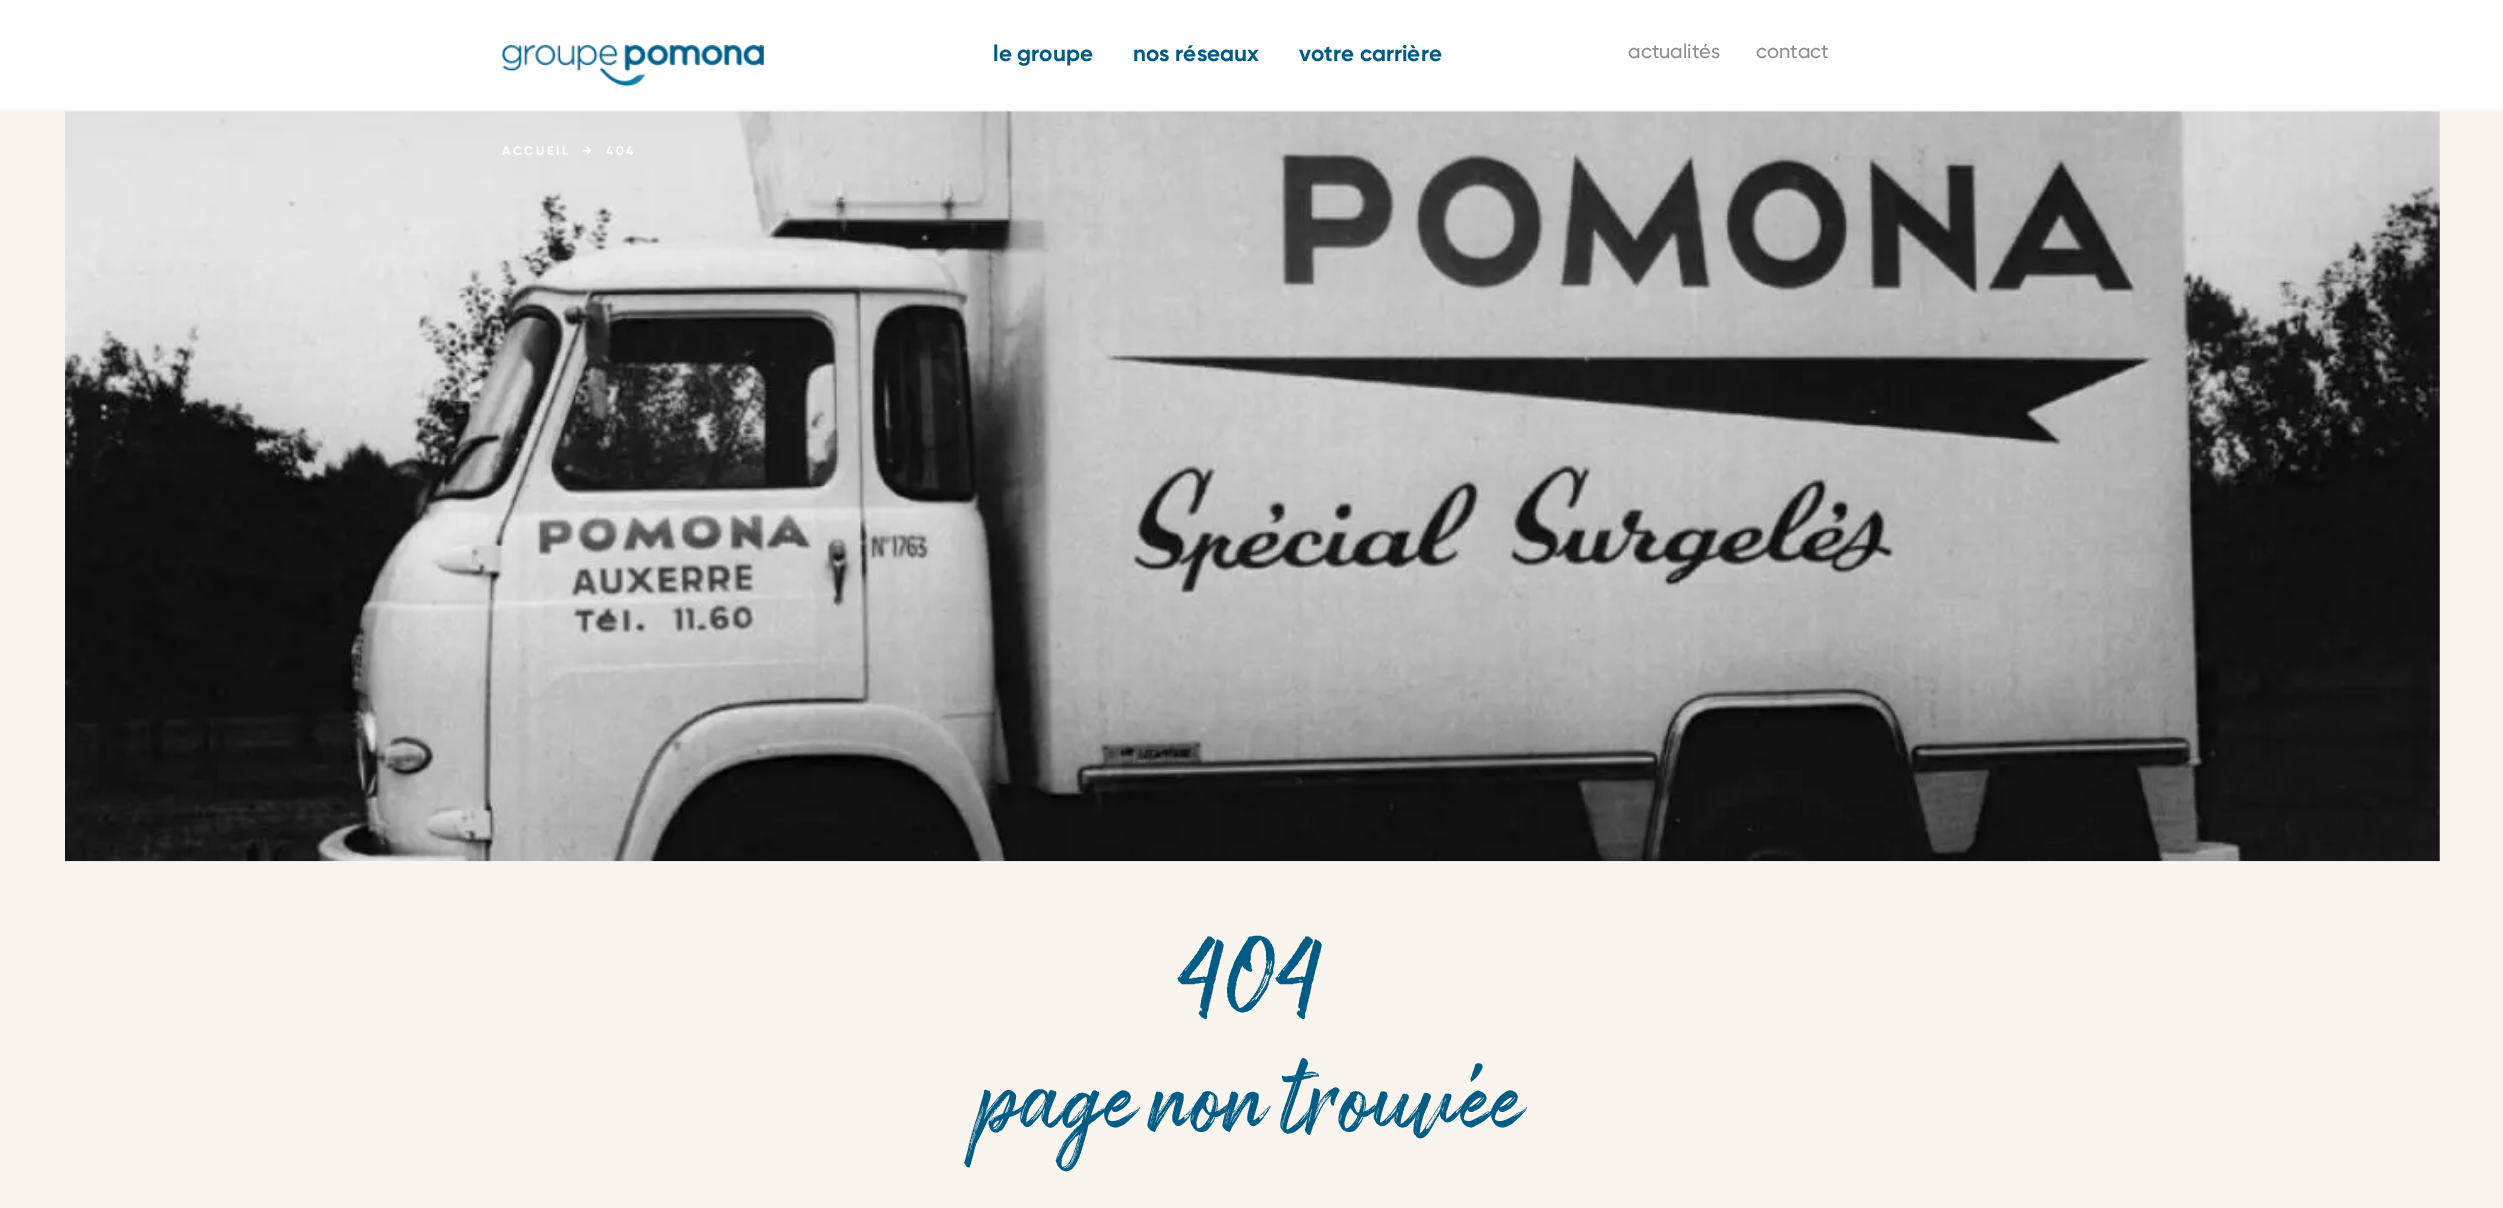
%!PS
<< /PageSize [2503 1208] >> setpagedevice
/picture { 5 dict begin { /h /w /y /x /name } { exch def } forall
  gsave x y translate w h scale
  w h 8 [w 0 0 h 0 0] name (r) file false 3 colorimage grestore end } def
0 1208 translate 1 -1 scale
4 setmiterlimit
0.976 0.961 0.933 setrgbcolor
0 0 2503 1208 rectfill
1 setgray
0 0 2503 110 rectfill
(img1.rgb) 502 45 262 42 picture
/Gilroy-Regular [22.5 0 0 -22.5 0 0] selectfont
0 0.361 0.518 setrgbcolor
993 61 moveto (le groupe) show
1133 61 moveto (nos réseaux) show
1299 61 moveto (votre carrière) show
/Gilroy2-Regular [20 0 0 -20 0 0] selectfont
0.557 setgray
1628 58 moveto (actualités) show
1756 58 moveto (contact) show
(img2.rgb) 65 111 2375 751 picture
/Gilroy-Regular [12.5 0 0 -12.5 0 0] selectfont
1 setgray
502 155 moveto 2.5 0 (ACCUEIL) ashow
582 155 moveto 2.5 0 (→) ashow
606 155 moveto 2.5 0 (404) ashow
/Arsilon-Regular [90 0 0 -90 0 0] selectfont
0 0.361 0.518 setrgbcolor
1179 1001 moveto (404) show
980 1127 moveto (page non trouvée) show
showpage
